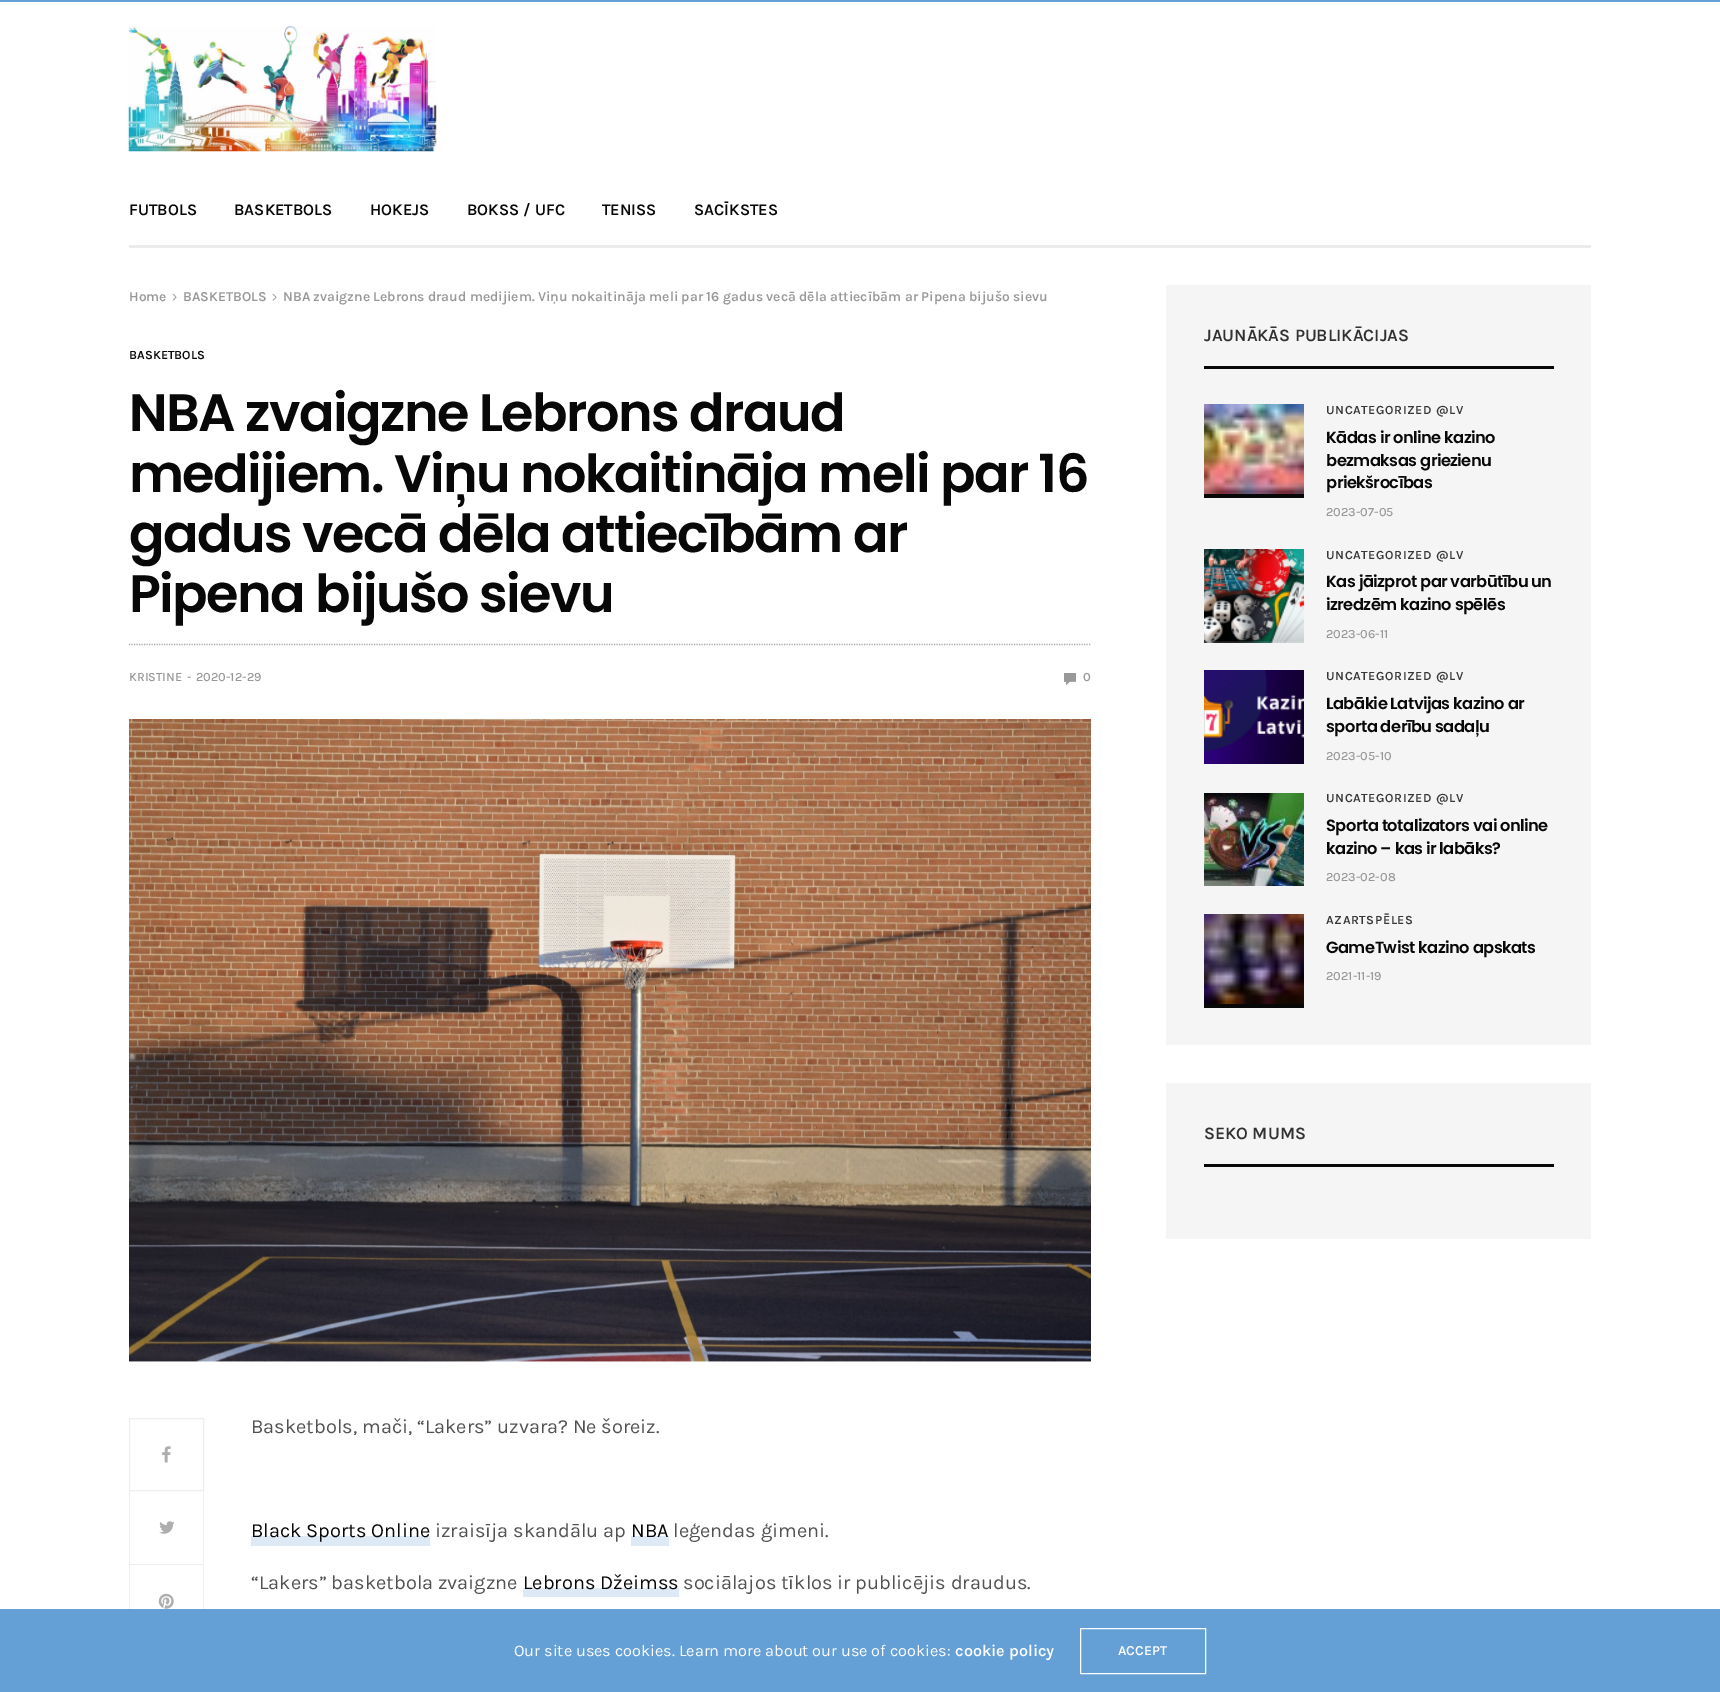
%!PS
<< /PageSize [1720 1692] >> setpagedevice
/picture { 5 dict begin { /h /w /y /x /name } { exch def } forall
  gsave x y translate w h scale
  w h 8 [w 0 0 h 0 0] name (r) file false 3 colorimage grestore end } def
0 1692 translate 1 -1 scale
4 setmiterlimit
1 setgray
0 0 1720 1692 rectfill
0.392 0.624 0.839 setrgbcolor
0 0 1720 2 rectfill
(img1.rgb) 128 26 309 126 picture
0.922 setgray
129 245 1462 3 rectfill
/Karla-SemiBold [16.25 0 0 -16.25 0 0] selectfont
0.031 setgray
129 215 moveto (FUTBOLS) show
234 215 moveto (BASKETBOLS) show
370 215 moveto (HOKEJS) show
467 215 moveto (BOKSS / UFC) show
602 215 moveto (TENISS) show
694 215 moveto (SACĪKSTES) show
/Karla-SemiBold [13.75 0 0 -13.75 0 0] selectfont
0.596 setgray
129 301 moveto (Home) show
(img2.rgb) 172 293 5 8 picture
183 301 moveto (BASKETBOLS) show
(img2.rgb) 272 293 5 8 picture
283 301 moveto (NBA zvaigzne Lebrons draud medijiem. Viņu nokaitināja meli par 16 gadus vecā dēla attiecībām ar Pipena bijušo sievu) show
/Karla-SemiBold [12.5 0 0 -12.5 0 0] selectfont
0.031 setgray
129 359 moveto (BASKETBOLS) show
0.659 setgray
1.2 setlinewidth
[1.25 1.25] 0 setdash
newpath 129 644.5 moveto 1091 644.5 lineto stroke
/Poppins-SemiBold [52.5 0 0 -52.5 0 0] selectfont
0.031 setgray
129 431 moveto -1.55 0 (NBA zvaigzne Lebrons draud) ashow
129 492 moveto -1.55 0 (medijiem. Viņu nokaitināja meli par 16) ashow
129 552 moveto -1.55 0 (gadus vecā dēla attiecībām ar) ashow
129 612 moveto -1.55 0 (Pipena bijušo sievu) ashow
/Karla-Medium [12.5 0 0 -12.5 0 0] selectfont
0.596 setgray
129 681 moveto (KRISTINE) show
187 681 moveto (-) show
196 681 moveto (2020-12-29) show
(img3.rgb) 1064 673 12 12 picture
/Karla-SemiBold [12.5 0 0 -12.5 0 0] selectfont
1083 681 moveto (0) show
(img4.rgb) 129 719 962 643 picture
0.933 setgray
1 setlinewidth
[] 0 setdash
129.5 1418.5 74 72 rectstroke
(img5.rgb) 162 1446 9 17 picture
203 1491 1 118 rectfill
129 1564 75 1 rectfill
129 1491 1 118 rectfill
(img6.rgb) 159 1521 16 13 picture
(img7.rgb) 158 1593 16 16 picture
/Karla-Regular [20 0 0 -20 0 0] selectfont
0.322 setgray
251 1433 moveto (Basketbols, mači, “Lakers” uzvara? Ne šoreiz.) show
0.867 0.918 0.965 setrgbcolor
251 1536 179 10 rectfill
0.031 setgray
251 1537 moveto (Black Sports Online) show
0.322 setgray
435 1537 moveto (izraisīja skandālu ap) show
0.867 0.918 0.965 setrgbcolor
631 1536 38 10 rectfill
0.031 setgray
631 1537 moveto (NBA) show
0.322 setgray
673 1537 moveto (leģendas ģimeni.) show
251 1589 moveto (“Lakers” basketbola zvaigzne) show
0.867 0.918 0.965 setrgbcolor
523 1588 156 9 rectfill
0.031 setgray
523 1589 moveto (Lebrons Džeimss) show
0.322 setgray
683 1589 moveto (sociālajos tīklos ir publicējis draudus.) show
0.961 setgray
1166 285 425 760 rectfill
0.031 setgray
1204 366 350 3 rectfill
/Karla-SemiBold [17.5 0 0 -17.5 0 0] selectfont
0.192 setgray
1204 341 moveto (JAUNĀKĀS PUBLIKĀCIJAS) show
0.031 setgray
1204 494 100 4 rectfill
(img8.rgb) 1204 404 100 90 picture
/Karla-SemiBold [12.5 0 0 -12.5 0 0] selectfont
0.216 setgray
1326 414 moveto 0.6 0 (UNCATEGORIZED @LV) ashow
/Poppins-SemiBold [16.25 0 0 -16.25 0 0] selectfont
0.031 setgray
1326 443 moveto -0.5 0 (Kādas ir online kazino) ashow
1326 466 moveto -0.5 0 (bezmaksas griezienu) ashow
1326 488 moveto -0.5 0 (priekšrocības) ashow
/Karla-Medium [12.5 0 0 -12.5 0 0] selectfont
0.596 setgray
1326 516 moveto (2023-07-05) show
(img9.rgb) 1204 549 100 94 picture
/Karla-SemiBold [12.5 0 0 -12.5 0 0] selectfont
0.216 setgray
1326 559 moveto 0.6 0 (UNCATEGORIZED @LV) ashow
/Poppins-SemiBold [16.25 0 0 -16.25 0 0] selectfont
0.031 setgray
1326 587 moveto -0.5 0 (Kas jāizprot par varbūtību un) ashow
1326 610 moveto -0.5 0 (izredzēm kazino spēlēs) ashow
/Karla-Medium [12.5 0 0 -12.5 0 0] selectfont
0.596 setgray
1326 638 moveto (2023-06-11) show
(img10.rgb) 1204 670 100 94 picture
/Karla-SemiBold [12.5 0 0 -12.5 0 0] selectfont
0.216 setgray
1326 680 moveto 0.6 0 (UNCATEGORIZED @LV) ashow
/Poppins-SemiBold [16.25 0 0 -16.25 0 0] selectfont
0.031 setgray
1326 709 moveto -0.5 0 (Labākie Latvijas kazino ar) ashow
1326 732 moveto -0.5 0 (sporta derību sadaļu) ashow
/Karla-Medium [12.5 0 0 -12.5 0 0] selectfont
0.596 setgray
1326 760 moveto (2023-05-10) show
(img11.rgb) 1204 793 100 93 picture
/Karla-SemiBold [12.5 0 0 -12.5 0 0] selectfont
0.216 setgray
1326 802 moveto 0.6 0 (UNCATEGORIZED @LV) ashow
/Poppins-SemiBold [16.25 0 0 -16.25 0 0] selectfont
0.031 setgray
1326 831 moveto -0.5 0 (Sporta totalizators vai online) ashow
1326 854 moveto -0.5 0 (kazino – kas ir labāks?) ashow
/Karla-Medium [12.5 0 0 -12.5 0 0] selectfont
0.596 setgray
1326 881 moveto (2023-02-08) show
0.031 setgray
1204 1004 100 4 rectfill
(img12.rgb) 1204 914 100 90 picture
/Karla-SemiBold [12.5 0 0 -12.5 0 0] selectfont
0.216 setgray
1326 924 moveto 0.6 0 (AZARTSPĒLES) ashow
/Poppins-SemiBold [16.25 0 0 -16.25 0 0] selectfont
0.031 setgray
1326 953 moveto -0.5 0 (GameTwist kazino apskats) ashow
/Karla-Medium [12.5 0 0 -12.5 0 0] selectfont
0.596 setgray
1326 980 moveto (2021-11-19) show
0.961 setgray
1166 1083 425 156 rectfill
0.031 setgray
1204 1164 350 3 rectfill
/Karla-SemiBold [17.5 0 0 -17.5 0 0] selectfont
0.192 setgray
1204 1139 moveto (SEKO MUMS) show
0.392 0.624 0.839 setrgbcolor
0 1609 1720 83 rectfill
/Karla-Regular [16.25 0 0 -16.25 0 0] selectfont
1 setgray
514 1656 moveto (Our site uses cookies. Learn more about our use of cookies:) show
/Karla-SemiBold [16.25 0 0 -16.25 0 0] selectfont
955 1656 moveto (cookie policy) show
1080.5 1628.5 125 45 rectstroke
/Karla-SemiBold [13.75 0 0 -13.75 0 0] selectfont
1118 1655 moveto (ACCEPT) show
showpage
